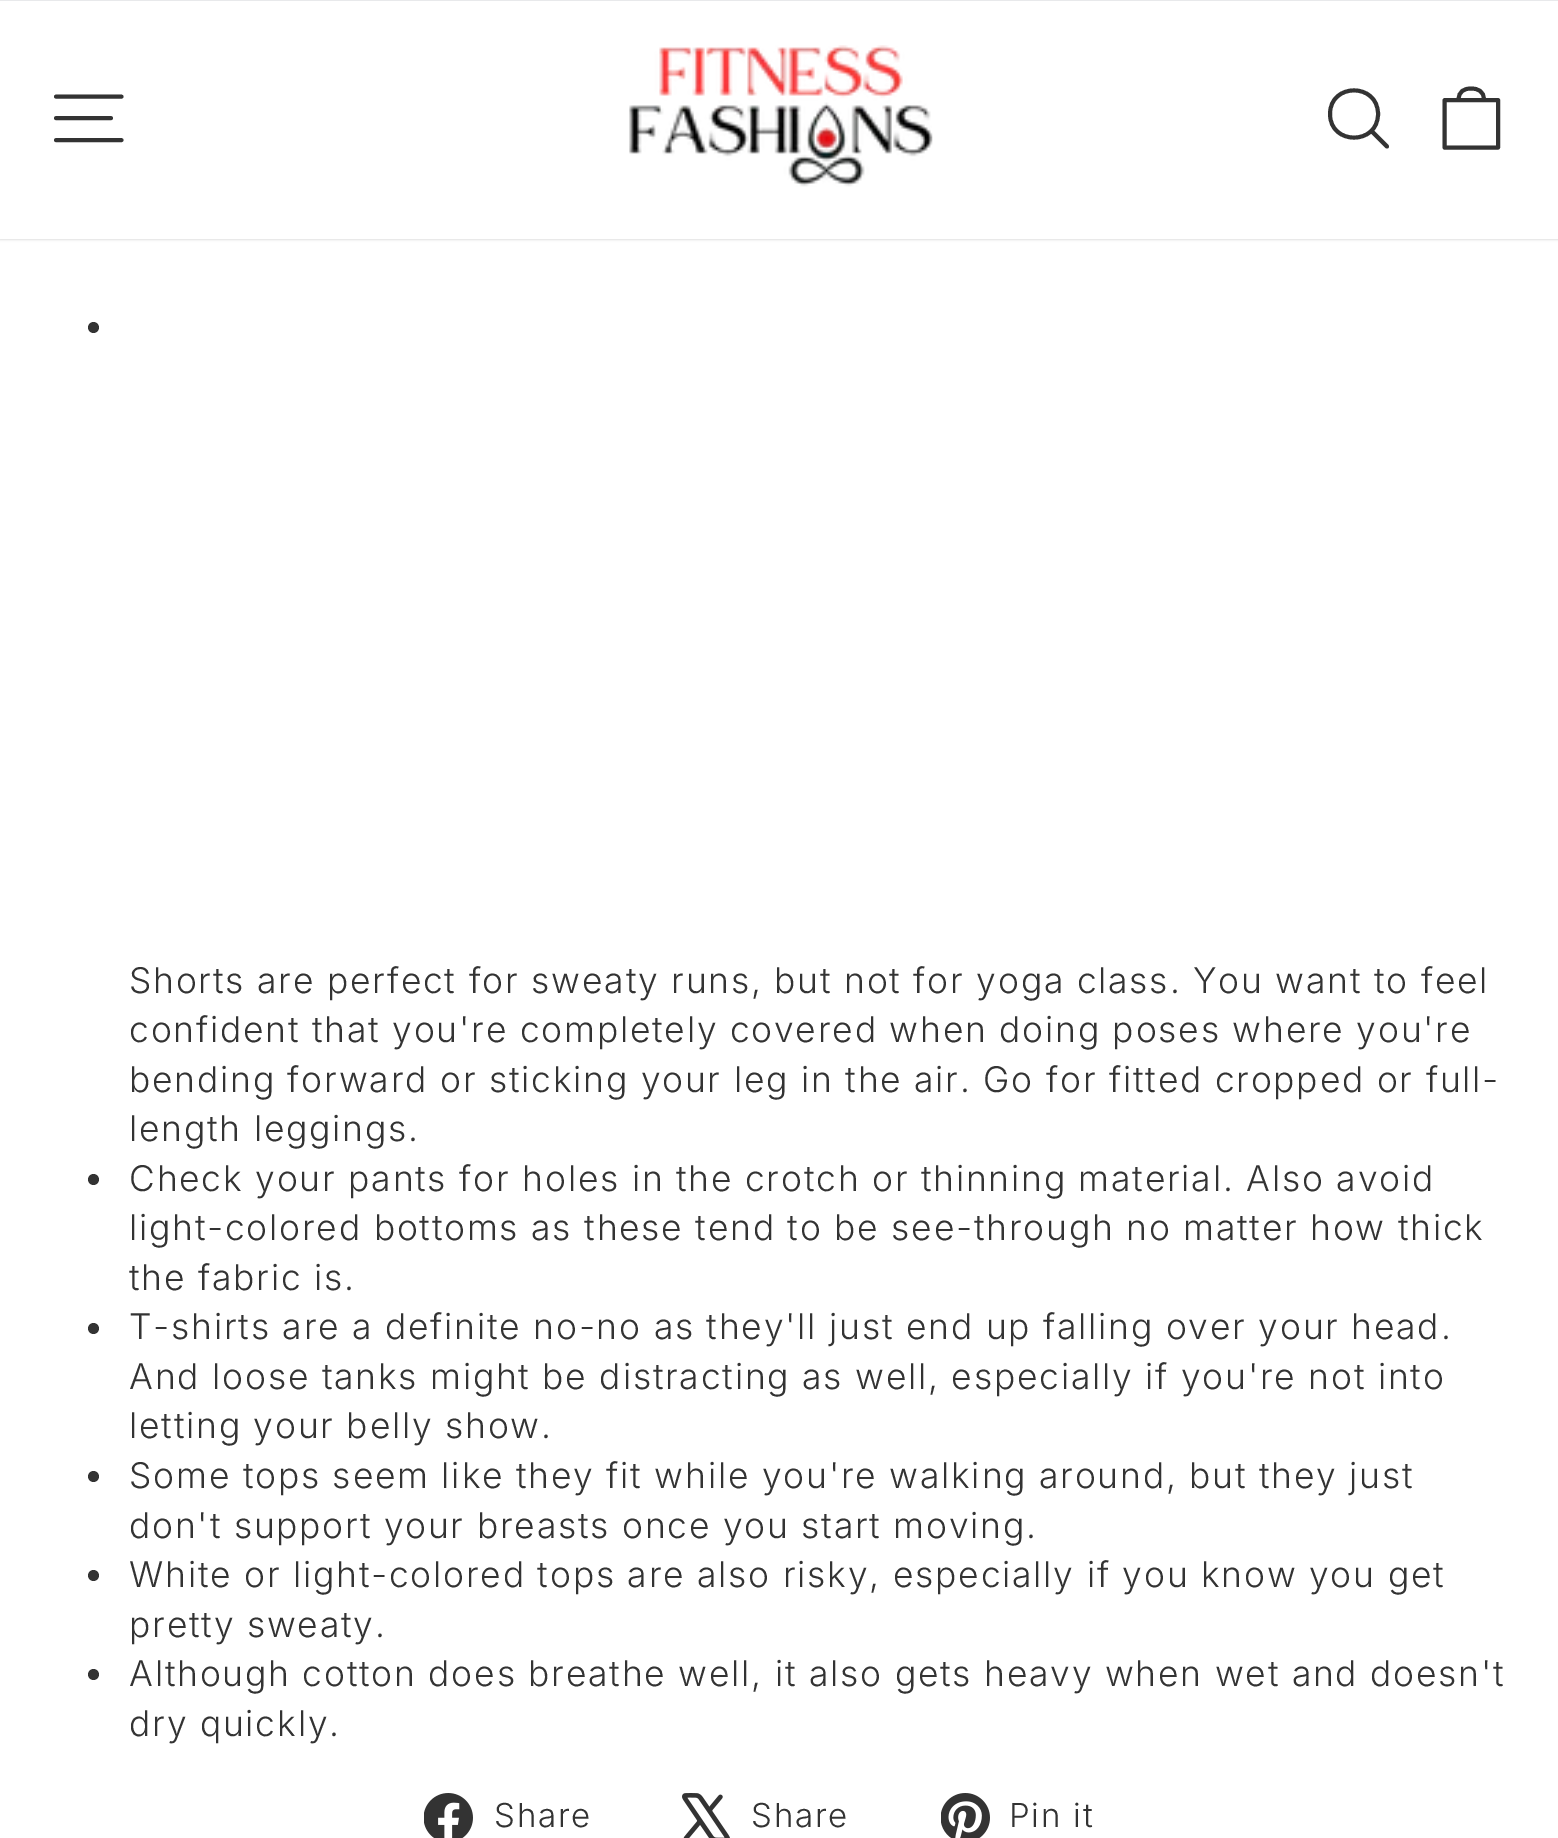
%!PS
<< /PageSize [1558 1838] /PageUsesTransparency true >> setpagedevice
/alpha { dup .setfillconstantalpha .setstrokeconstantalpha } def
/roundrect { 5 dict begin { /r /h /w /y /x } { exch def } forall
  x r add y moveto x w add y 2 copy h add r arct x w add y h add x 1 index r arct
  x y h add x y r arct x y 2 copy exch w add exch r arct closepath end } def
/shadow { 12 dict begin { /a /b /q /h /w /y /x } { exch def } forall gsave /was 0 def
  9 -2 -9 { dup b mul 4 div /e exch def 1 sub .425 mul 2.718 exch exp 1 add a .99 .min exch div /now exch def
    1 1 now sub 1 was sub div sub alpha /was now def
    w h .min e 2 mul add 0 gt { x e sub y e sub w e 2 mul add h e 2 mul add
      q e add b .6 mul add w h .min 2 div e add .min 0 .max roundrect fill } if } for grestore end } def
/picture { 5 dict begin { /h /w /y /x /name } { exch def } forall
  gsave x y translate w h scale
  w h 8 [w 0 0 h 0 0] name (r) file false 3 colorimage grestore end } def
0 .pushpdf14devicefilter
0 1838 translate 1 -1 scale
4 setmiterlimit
1 setgray
0 0 1558 1838 rectfill
0 setgray
0 0 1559 239 0 1.5 0.2 shadow
0.91 0.914 0.922 setrgbcolor
0 0 1558 1 rectfill
1 setgray
0 1 1558 238 rectfill
0.2 setgray
3.9 setlinewidth
1 setlinecap
1 setlinejoin
newpath 56 96.5 moveto 121.5 96.5 lineto 56 118 moveto 111 118 lineto 56 140 moveto 121.5 140 lineto stroke
(img1.rgb) 629 45 304 142 picture
newpath 1378 114 moveto 1378 145.5 1330 145.5 1330 114 curveto 1330 82.5 1378 82.5 1378 114 curveto closepath 1387 146.5 moveto 1371.5 131 lineto stroke
newpath 1444.5 100 moveto 1498 100 lineto 1498 147.5 lineto 1444.5 147.5 lineto closepath stroke
newpath 1458.5 100 moveto 1458.5 91 1464.5 88.5 1471 88.5 curveto 1478 88.5 1484 91 1484 100 curveto stroke
newpath 93.5 327.5 5.5 0 360 arc closepath fill
/Inter-Light [35.4 0 0 -35.4 0 0] selectfont
129 993 moveto 1.77 0 (Shorts are perfect for sweaty runs, but not for yoga class. You want to feel) ashow
129 1042 moveto 1.77 0 (confident that you're completely covered when doing poses where you're) ashow
129 1092 moveto 1.77 0 (bending forward or sticking your leg in the air. Go for fitted cropped or full-) ashow
129 1141 moveto 1.77 0 (length leggings.) ashow
newpath 93.5 1179.5 5.5 0 360 arc closepath fill
129 1191 moveto 1.77 0 (Check your pants for holes in the crotch or thinning material. Also avoid) ashow
129 1240 moveto 1.77 0 (light-colored bottoms as these tend to be see-through no matter how thick) ashow
129 1290 moveto 1.77 0 (the fabric is.) ashow
newpath 93.5 1328.5 5.5 0 360 arc closepath fill
129 1339 moveto 1.77 0 (T-shirts are a definite no-no as they'll just end up falling over your head.) ashow
129 1389 moveto 1.77 0 (And loose tanks might be distracting as well, especially if you're not into) ashow
129 1438 moveto 1.77 0 (letting your belly show.) ashow
newpath 93.5 1476.5 5.5 0 360 arc closepath fill
129 1488 moveto 1.77 0 (Some tops seem like they fit while you're walking around, but they just) ashow
129 1538 moveto 1.77 0 (don't support your breasts once you start moving.) ashow
newpath 93.5 1575.5 5.5 0 360 arc closepath fill
129 1587 moveto 1.77 0 (White or light-colored tops are also risky, especially if you know you get) ashow
129 1637 moveto 1.77 0 (pretty sweaty.) ashow
newpath 93.5 1674.5 5.5 0 360 arc closepath fill
129 1686 moveto 1.77 0 (Although cotton does breathe well, it also gets heavy when wet and doesn't) ashow
129 1736 moveto 1.77 0 (dry quickly.) ashow
(img2.rgb) 424 1793 49 45 picture
/Inter-Light [33 0 0 -33 0 0] selectfont
494 1827 moveto 1.77 0 (Share) ashow
(img3.rgb) 682 1793 48 45 picture
751 1827 moveto 1.77 0 (Share) ashow
(img4.rgb) 941 1793 49 45 picture
1009 1827 moveto 1.77 0 (Pin it) ashow
.poppdf14devicefilter showpage
